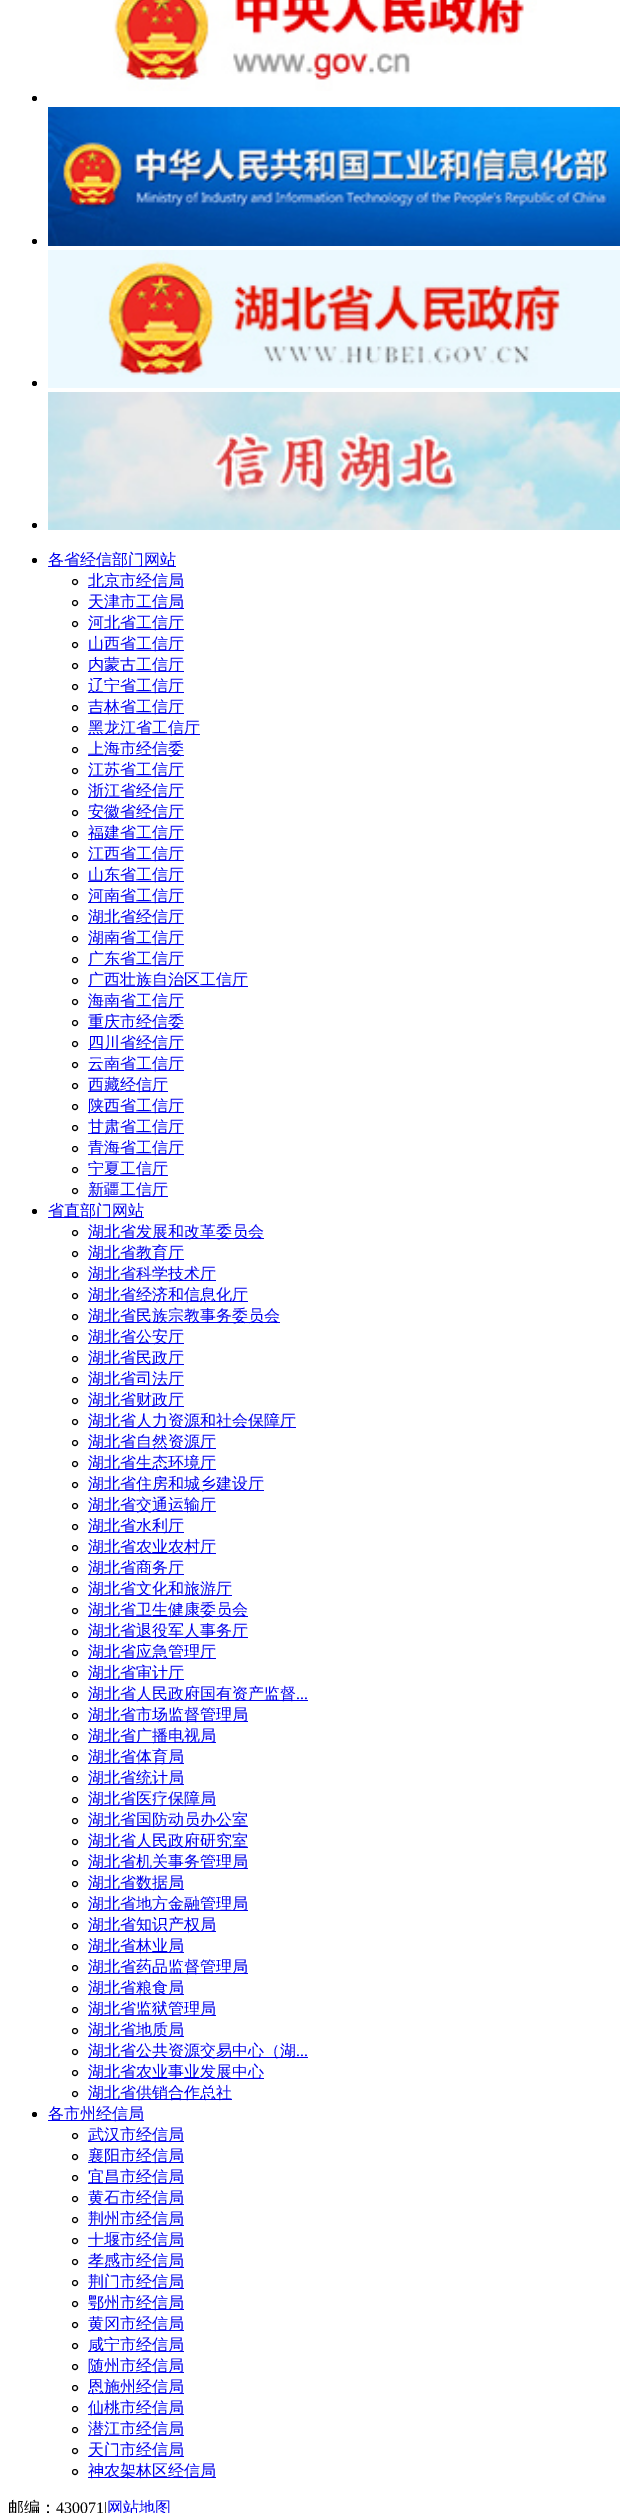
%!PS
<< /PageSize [628 2513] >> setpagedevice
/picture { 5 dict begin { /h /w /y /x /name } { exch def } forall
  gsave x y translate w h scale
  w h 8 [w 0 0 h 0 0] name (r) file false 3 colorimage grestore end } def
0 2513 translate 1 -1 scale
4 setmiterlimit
1 setgray
0 0 628 2513 rectfill
(img1.rgb) 113 0 424 91 picture
0 setgray
newpath 34.5 98.5 2.5 0 360 arc closepath fill
newpath 34.5 241.5 2.5 0 360 arc closepath fill
(img2.rgb) 48 107 572 139 picture
newpath 34.5 383.5 2.5 0 360 arc closepath fill
(img3.rgb) 48 250 572 138 picture
newpath 34.5 525.5 2.5 0 360 arc closepath fill
(img4.rgb) 48 392 572 138 picture
newpath 34.5 560.5 2.5 0 360 arc closepath fill
0 0 0.933 setrgbcolor
48 566 128 1 rectfill
/WenQuanYiZenHei-Medium [16 0 0 -16 0 0] selectfont
48 565 moveto (各省经信部门网站) show
0 setgray
newpath 75 582 2.5 0 360 arc closepath stroke
0 0 0.933 setrgbcolor
88 587 96 1 rectfill
88 586 moveto (北京市经信局) show
0 setgray
newpath 75 603 2.5 0 360 arc closepath stroke
0 0 0.933 setrgbcolor
88 608 96 1 rectfill
88 607 moveto (天津市工信局) show
0 setgray
newpath 75 624 2.5 0 360 arc closepath stroke
0 0 0.933 setrgbcolor
88 629 96 1 rectfill
88 628 moveto (河北省工信厅) show
0 setgray
newpath 75 645 2.5 0 360 arc closepath stroke
0 0 0.933 setrgbcolor
88 650 96 1 rectfill
88 649 moveto (山西省工信厅) show
0 setgray
newpath 75 666 2.5 0 360 arc closepath stroke
0 0 0.933 setrgbcolor
88 671 96 1 rectfill
88 670 moveto (内蒙古工信厅) show
0 setgray
newpath 75 687 2.5 0 360 arc closepath stroke
0 0 0.933 setrgbcolor
88 692 96 1 rectfill
88 691 moveto (辽宁省工信厅) show
0 setgray
newpath 75 708 2.5 0 360 arc closepath stroke
0 0 0.933 setrgbcolor
88 713 96 1 rectfill
88 712 moveto (吉林省工信厅) show
0 setgray
newpath 75 729 2.5 0 360 arc closepath stroke
0 0 0.933 setrgbcolor
88 734 112 1 rectfill
88 733 moveto (黑龙江省工信厅) show
0 setgray
newpath 75 750 2.5 0 360 arc closepath stroke
0 0 0.933 setrgbcolor
88 755 96 1 rectfill
88 754 moveto (上海市经信委) show
0 setgray
newpath 75 771 2.5 0 360 arc closepath stroke
0 0 0.933 setrgbcolor
88 776 96 1 rectfill
88 775 moveto (江苏省工信厅) show
0 setgray
newpath 75 792 2.5 0 360 arc closepath stroke
0 0 0.933 setrgbcolor
88 797 96 1 rectfill
88 796 moveto (浙江省经信厅) show
0 setgray
newpath 75 813 2.5 0 360 arc closepath stroke
0 0 0.933 setrgbcolor
88 818 96 1 rectfill
88 817 moveto (安徽省经信厅) show
0 setgray
newpath 75 834 2.5 0 360 arc closepath stroke
0 0 0.933 setrgbcolor
88 839 96 1 rectfill
88 838 moveto (福建省工信厅) show
0 setgray
newpath 75 855 2.5 0 360 arc closepath stroke
0 0 0.933 setrgbcolor
88 860 96 1 rectfill
88 859 moveto (江西省工信厅) show
0 setgray
newpath 75 876 2.5 0 360 arc closepath stroke
0 0 0.933 setrgbcolor
88 881 96 1 rectfill
88 880 moveto (山东省工信厅) show
0 setgray
newpath 75 897 2.5 0 360 arc closepath stroke
0 0 0.933 setrgbcolor
88 902 96 1 rectfill
88 901 moveto (河南省工信厅) show
0 setgray
newpath 75 918 2.5 0 360 arc closepath stroke
0 0 0.933 setrgbcolor
88 923 96 1 rectfill
88 922 moveto (湖北省经信厅) show
0 setgray
newpath 75 939 2.5 0 360 arc closepath stroke
0 0 0.933 setrgbcolor
88 944 96 1 rectfill
88 943 moveto (湖南省工信厅) show
0 setgray
newpath 75 960 2.5 0 360 arc closepath stroke
0 0 0.933 setrgbcolor
88 965 96 1 rectfill
88 964 moveto (广东省工信厅) show
0 setgray
newpath 75 981 2.5 0 360 arc closepath stroke
0 0 0.933 setrgbcolor
88 986 160 1 rectfill
88 985 moveto (广西壮族自治区工信厅) show
0 setgray
newpath 75 1002 2.5 0 360 arc closepath stroke
0 0 0.933 setrgbcolor
88 1007 96 1 rectfill
88 1006 moveto (海南省工信厅) show
0 setgray
newpath 75 1023 2.5 0 360 arc closepath stroke
0 0 0.933 setrgbcolor
88 1028 96 1 rectfill
88 1027 moveto (重庆市经信委) show
0 setgray
newpath 75 1044 2.5 0 360 arc closepath stroke
0 0 0.933 setrgbcolor
88 1049 96 1 rectfill
88 1048 moveto (四川省经信厅) show
0 setgray
newpath 75 1065 2.5 0 360 arc closepath stroke
0 0 0.933 setrgbcolor
88 1070 96 1 rectfill
88 1069 moveto (云南省工信厅) show
0 setgray
newpath 75 1086 2.5 0 360 arc closepath stroke
0 0 0.933 setrgbcolor
88 1091 80 1 rectfill
88 1090 moveto (西藏经信厅) show
0 setgray
newpath 75 1107 2.5 0 360 arc closepath stroke
0 0 0.933 setrgbcolor
88 1112 96 1 rectfill
88 1111 moveto (陕西省工信厅) show
0 setgray
newpath 75 1128 2.5 0 360 arc closepath stroke
0 0 0.933 setrgbcolor
88 1133 96 1 rectfill
88 1132 moveto (甘肃省工信厅) show
0 setgray
newpath 75 1149 2.5 0 360 arc closepath stroke
0 0 0.933 setrgbcolor
88 1154 96 1 rectfill
88 1153 moveto (青海省工信厅) show
0 setgray
newpath 75 1170 2.5 0 360 arc closepath stroke
0 0 0.933 setrgbcolor
88 1175 80 1 rectfill
88 1174 moveto (宁夏工信厅) show
0 setgray
newpath 75 1191 2.5 0 360 arc closepath stroke
0 0 0.933 setrgbcolor
88 1196 80 1 rectfill
88 1195 moveto (新疆工信厅) show
0 setgray
newpath 34.5 1211.5 2.5 0 360 arc closepath fill
0 0 0.933 setrgbcolor
48 1217 96 1 rectfill
48 1216 moveto (省直部门网站) show
0 setgray
newpath 75 1233 2.5 0 360 arc closepath stroke
0 0 0.933 setrgbcolor
88 1238 176 1 rectfill
88 1237 moveto (湖北省发展和改革委员会) show
0 setgray
newpath 75 1254 2.5 0 360 arc closepath stroke
0 0 0.933 setrgbcolor
88 1259 96 1 rectfill
88 1258 moveto (湖北省教育厅) show
0 setgray
newpath 75 1275 2.5 0 360 arc closepath stroke
0 0 0.933 setrgbcolor
88 1280 128 1 rectfill
88 1279 moveto (湖北省科学技术厅) show
0 setgray
newpath 75 1296 2.5 0 360 arc closepath stroke
0 0 0.933 setrgbcolor
88 1301 160 1 rectfill
88 1300 moveto (湖北省经济和信息化厅) show
0 setgray
newpath 75 1317 2.5 0 360 arc closepath stroke
0 0 0.933 setrgbcolor
88 1322 192 1 rectfill
88 1321 moveto (湖北省民族宗教事务委员会) show
0 setgray
newpath 75 1338 2.5 0 360 arc closepath stroke
0 0 0.933 setrgbcolor
88 1343 96 1 rectfill
88 1342 moveto (湖北省公安厅) show
0 setgray
newpath 75 1359 2.5 0 360 arc closepath stroke
0 0 0.933 setrgbcolor
88 1364 96 1 rectfill
88 1363 moveto (湖北省民政厅) show
0 setgray
newpath 75 1380 2.5 0 360 arc closepath stroke
0 0 0.933 setrgbcolor
88 1385 96 1 rectfill
88 1384 moveto (湖北省司法厅) show
0 setgray
newpath 75 1401 2.5 0 360 arc closepath stroke
0 0 0.933 setrgbcolor
88 1406 96 1 rectfill
88 1405 moveto (湖北省财政厅) show
0 setgray
newpath 75 1422 2.5 0 360 arc closepath stroke
0 0 0.933 setrgbcolor
88 1427 208 1 rectfill
88 1426 moveto (湖北省人力资源和社会保障厅) show
0 setgray
newpath 75 1443 2.5 0 360 arc closepath stroke
0 0 0.933 setrgbcolor
88 1448 128 1 rectfill
88 1447 moveto (湖北省自然资源厅) show
0 setgray
newpath 75 1464 2.5 0 360 arc closepath stroke
0 0 0.933 setrgbcolor
88 1469 128 1 rectfill
88 1468 moveto (湖北省生态环境厅) show
0 setgray
newpath 75 1485 2.5 0 360 arc closepath stroke
0 0 0.933 setrgbcolor
88 1490 176 1 rectfill
88 1489 moveto (湖北省住房和城乡建设厅) show
0 setgray
newpath 75 1506 2.5 0 360 arc closepath stroke
0 0 0.933 setrgbcolor
88 1511 128 1 rectfill
88 1510 moveto (湖北省交通运输厅) show
0 setgray
newpath 75 1527 2.5 0 360 arc closepath stroke
0 0 0.933 setrgbcolor
88 1532 96 1 rectfill
88 1531 moveto (湖北省水利厅) show
0 setgray
newpath 75 1548 2.5 0 360 arc closepath stroke
0 0 0.933 setrgbcolor
88 1553 128 1 rectfill
88 1552 moveto (湖北省农业农村厅) show
0 setgray
newpath 75 1569 2.5 0 360 arc closepath stroke
0 0 0.933 setrgbcolor
88 1574 96 1 rectfill
88 1573 moveto (湖北省商务厅) show
0 setgray
newpath 75 1590 2.5 0 360 arc closepath stroke
0 0 0.933 setrgbcolor
88 1595 144 1 rectfill
88 1594 moveto (湖北省文化和旅游厅) show
0 setgray
newpath 75 1611 2.5 0 360 arc closepath stroke
0 0 0.933 setrgbcolor
88 1616 160 1 rectfill
88 1615 moveto (湖北省卫生健康委员会) show
0 setgray
newpath 75 1632 2.5 0 360 arc closepath stroke
0 0 0.933 setrgbcolor
88 1637 160 1 rectfill
88 1636 moveto (湖北省退役军人事务厅) show
0 setgray
newpath 75 1653 2.5 0 360 arc closepath stroke
0 0 0.933 setrgbcolor
88 1658 128 1 rectfill
88 1657 moveto (湖北省应急管理厅) show
0 setgray
newpath 75 1674 2.5 0 360 arc closepath stroke
0 0 0.933 setrgbcolor
88 1679 96 1 rectfill
88 1678 moveto (湖北省审计厅) show
0 setgray
newpath 75 1695 2.5 0 360 arc closepath stroke
0 0 0.933 setrgbcolor
88 1700 220 1 rectfill
88 1699 moveto (湖北省人民政府国有资产监督) show
/LiberationSerif-Regular [16 0 0 -16 0 0] selectfont
296 1699 moveto (...) show
0 setgray
newpath 75 1716 2.5 0 360 arc closepath stroke
0 0 0.933 setrgbcolor
88 1721 160 1 rectfill
/WenQuanYiZenHei-Medium [16 0 0 -16 0 0] selectfont
88 1720 moveto (湖北省市场监督管理局) show
0 setgray
newpath 75 1737 2.5 0 360 arc closepath stroke
0 0 0.933 setrgbcolor
88 1742 128 1 rectfill
88 1741 moveto (湖北省广播电视局) show
0 setgray
newpath 75 1758 2.5 0 360 arc closepath stroke
0 0 0.933 setrgbcolor
88 1763 96 1 rectfill
88 1762 moveto (湖北省体育局) show
0 setgray
newpath 75 1779 2.5 0 360 arc closepath stroke
0 0 0.933 setrgbcolor
88 1784 96 1 rectfill
88 1783 moveto (湖北省统计局) show
0 setgray
newpath 75 1800 2.5 0 360 arc closepath stroke
0 0 0.933 setrgbcolor
88 1805 128 1 rectfill
88 1804 moveto (湖北省医疗保障局) show
0 setgray
newpath 75 1821 2.5 0 360 arc closepath stroke
0 0 0.933 setrgbcolor
88 1826 160 1 rectfill
88 1825 moveto (湖北省国防动员办公室) show
0 setgray
newpath 75 1842 2.5 0 360 arc closepath stroke
0 0 0.933 setrgbcolor
88 1847 160 1 rectfill
88 1846 moveto (湖北省人民政府研究室) show
0 setgray
newpath 75 1863 2.5 0 360 arc closepath stroke
0 0 0.933 setrgbcolor
88 1868 160 1 rectfill
88 1867 moveto (湖北省机关事务管理局) show
0 setgray
newpath 75 1884 2.5 0 360 arc closepath stroke
0 0 0.933 setrgbcolor
88 1889 96 1 rectfill
88 1888 moveto (湖北省数据局) show
0 setgray
newpath 75 1905 2.5 0 360 arc closepath stroke
0 0 0.933 setrgbcolor
88 1910 160 1 rectfill
88 1909 moveto (湖北省地方金融管理局) show
0 setgray
newpath 75 1926 2.5 0 360 arc closepath stroke
0 0 0.933 setrgbcolor
88 1931 128 1 rectfill
88 1930 moveto (湖北省知识产权局) show
0 setgray
newpath 75 1947 2.5 0 360 arc closepath stroke
0 0 0.933 setrgbcolor
88 1952 96 1 rectfill
88 1951 moveto (湖北省林业局) show
0 setgray
newpath 75 1968 2.5 0 360 arc closepath stroke
0 0 0.933 setrgbcolor
88 1973 160 1 rectfill
88 1972 moveto (湖北省药品监督管理局) show
0 setgray
newpath 75 1989 2.5 0 360 arc closepath stroke
0 0 0.933 setrgbcolor
88 1994 96 1 rectfill
88 1993 moveto (湖北省粮食局) show
0 setgray
newpath 75 2010 2.5 0 360 arc closepath stroke
0 0 0.933 setrgbcolor
88 2015 128 1 rectfill
88 2014 moveto (湖北省监狱管理局) show
0 setgray
newpath 75 2031 2.5 0 360 arc closepath stroke
0 0 0.933 setrgbcolor
88 2036 96 1 rectfill
88 2035 moveto (湖北省地质局) show
0 setgray
newpath 75 2052 2.5 0 360 arc closepath stroke
0 0 0.933 setrgbcolor
88 2057 220 1 rectfill
88 2056 moveto (湖北省公共资源交易中心（湖) show
/LiberationSerif-Regular [16 0 0 -16 0 0] selectfont
296 2056 moveto (...) show
0 setgray
newpath 75 2073 2.5 0 360 arc closepath stroke
0 0 0.933 setrgbcolor
88 2078 176 1 rectfill
/WenQuanYiZenHei-Medium [16 0 0 -16 0 0] selectfont
88 2077 moveto (湖北省农业事业发展中心) show
0 setgray
newpath 75 2094 2.5 0 360 arc closepath stroke
0 0 0.933 setrgbcolor
88 2099 144 1 rectfill
88 2098 moveto (湖北省供销合作总社) show
0 setgray
newpath 34.5 2114.5 2.5 0 360 arc closepath fill
0 0 0.933 setrgbcolor
48 2120 96 1 rectfill
48 2119 moveto (各市州经信局) show
0 setgray
newpath 75 2136 2.5 0 360 arc closepath stroke
0 0 0.933 setrgbcolor
88 2141 96 1 rectfill
88 2140 moveto (武汉市经信局) show
0 setgray
newpath 75 2157 2.5 0 360 arc closepath stroke
0 0 0.933 setrgbcolor
88 2162 96 1 rectfill
88 2161 moveto (襄阳市经信局) show
0 setgray
newpath 75 2178 2.5 0 360 arc closepath stroke
0 0 0.933 setrgbcolor
88 2183 96 1 rectfill
88 2182 moveto (宜昌市经信局) show
0 setgray
newpath 75 2199 2.5 0 360 arc closepath stroke
0 0 0.933 setrgbcolor
88 2204 96 1 rectfill
88 2203 moveto (黄石市经信局) show
0 setgray
newpath 75 2220 2.5 0 360 arc closepath stroke
0 0 0.933 setrgbcolor
88 2225 96 1 rectfill
88 2224 moveto (荆州市经信局) show
0 setgray
newpath 75 2241 2.5 0 360 arc closepath stroke
0 0 0.933 setrgbcolor
88 2246 96 1 rectfill
88 2245 moveto (十堰市经信局) show
0 setgray
newpath 75 2262 2.5 0 360 arc closepath stroke
0 0 0.933 setrgbcolor
88 2267 96 1 rectfill
88 2266 moveto (孝感市经信局) show
0 setgray
newpath 75 2283 2.5 0 360 arc closepath stroke
0 0 0.933 setrgbcolor
88 2288 96 1 rectfill
88 2287 moveto (荆门市经信局) show
0 setgray
newpath 75 2304 2.5 0 360 arc closepath stroke
0 0 0.933 setrgbcolor
88 2309 96 1 rectfill
88 2308 moveto (鄂州市经信局) show
0 setgray
newpath 75 2325 2.5 0 360 arc closepath stroke
0 0 0.933 setrgbcolor
88 2330 96 1 rectfill
88 2329 moveto (黄冈市经信局) show
0 setgray
newpath 75 2346 2.5 0 360 arc closepath stroke
0 0 0.933 setrgbcolor
88 2351 96 1 rectfill
88 2350 moveto (咸宁市经信局) show
0 setgray
newpath 75 2367 2.5 0 360 arc closepath stroke
0 0 0.933 setrgbcolor
88 2372 96 1 rectfill
88 2371 moveto (随州市经信局) show
0 setgray
newpath 75 2388 2.5 0 360 arc closepath stroke
0 0 0.933 setrgbcolor
88 2393 96 1 rectfill
88 2392 moveto (恩施州经信局) show
0 setgray
newpath 75 2409 2.5 0 360 arc closepath stroke
0 0 0.933 setrgbcolor
88 2414 96 1 rectfill
88 2413 moveto (仙桃市经信局) show
0 setgray
newpath 75 2430 2.5 0 360 arc closepath stroke
0 0 0.933 setrgbcolor
88 2435 96 1 rectfill
88 2434 moveto (潜江市经信局) show
0 setgray
newpath 75 2451 2.5 0 360 arc closepath stroke
0 0 0.933 setrgbcolor
88 2456 96 1 rectfill
88 2455 moveto (天门市经信局) show
0 setgray
newpath 75 2472 2.5 0 360 arc closepath stroke
0 0 0.933 setrgbcolor
88 2477 128 1 rectfill
88 2476 moveto (神农架林区经信局) show
0 setgray
8 2513 moveto (邮编：) show
/LiberationSerif-Regular [16 0 0 -16 0 0] selectfont
56 2513 moveto (430071|) show
/WenQuanYiZenHei-Medium [16 0 0 -16 0 0] selectfont
0 0 0.933 setrgbcolor
107 2513 moveto (网站地图) show
showpage
